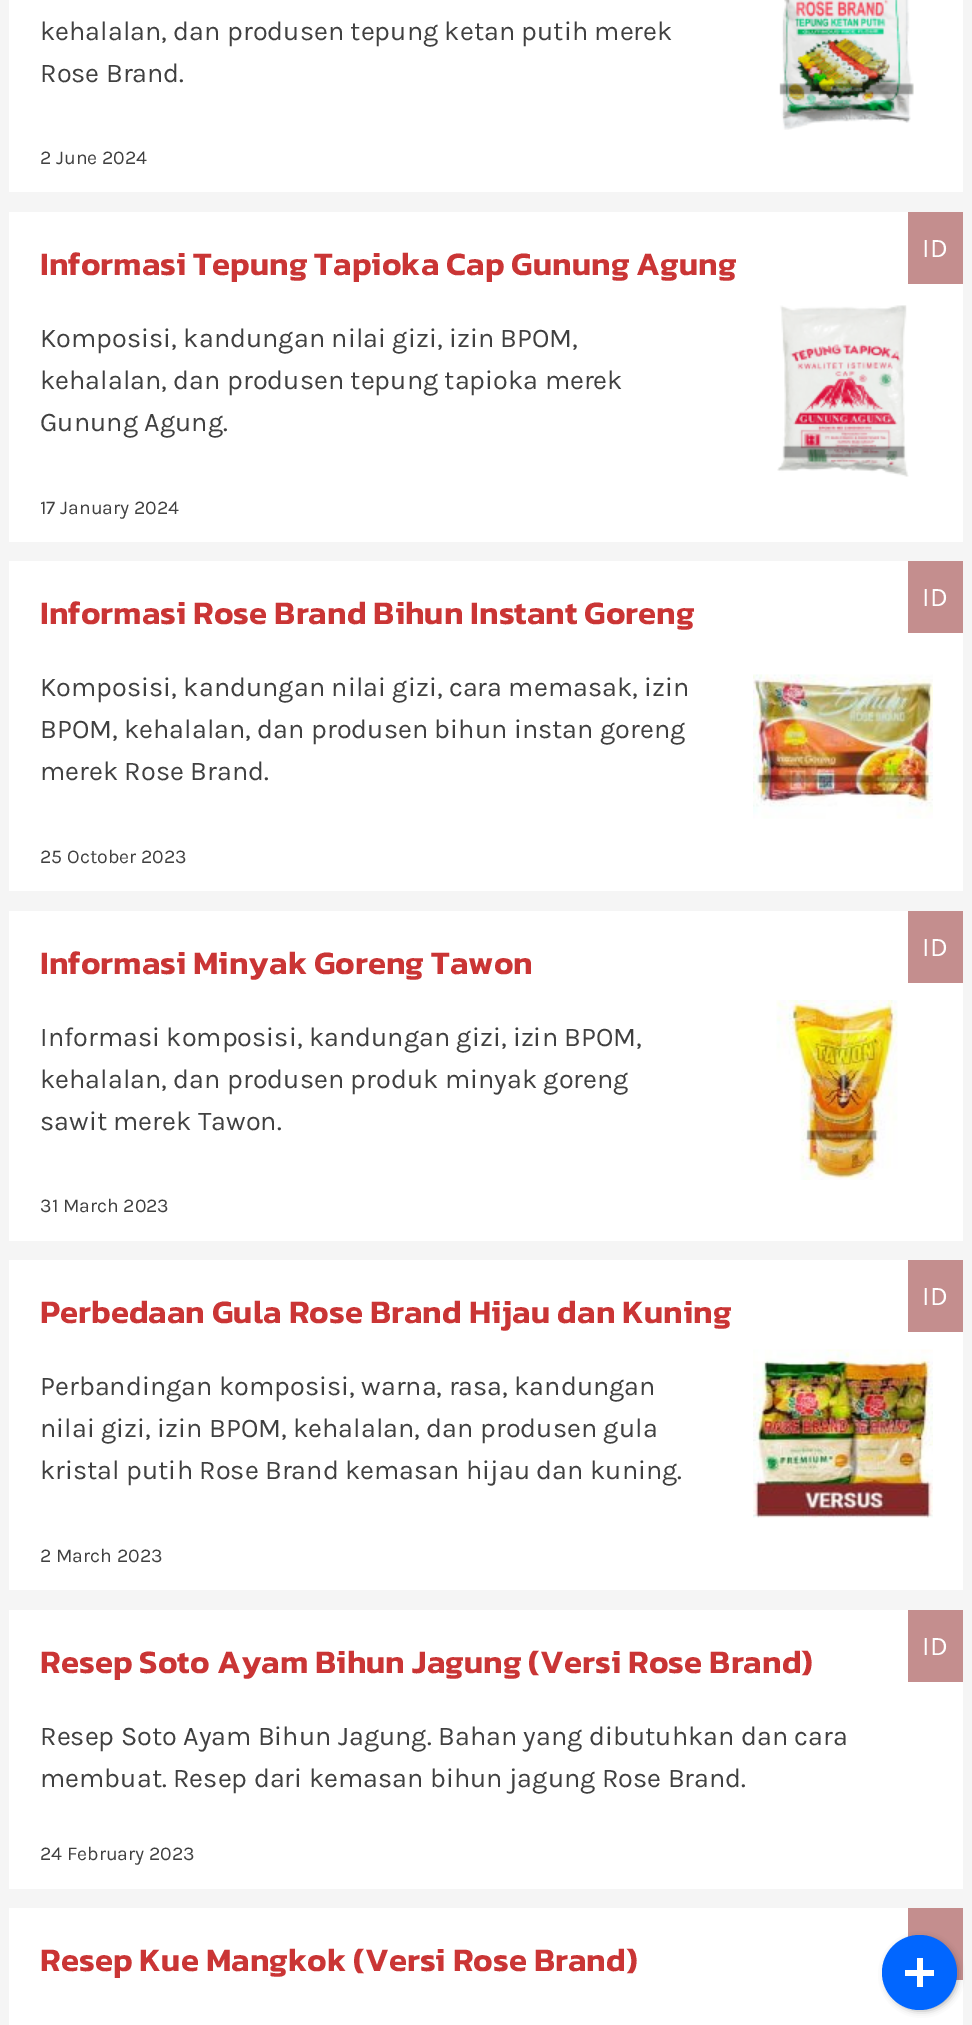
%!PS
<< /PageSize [972 2025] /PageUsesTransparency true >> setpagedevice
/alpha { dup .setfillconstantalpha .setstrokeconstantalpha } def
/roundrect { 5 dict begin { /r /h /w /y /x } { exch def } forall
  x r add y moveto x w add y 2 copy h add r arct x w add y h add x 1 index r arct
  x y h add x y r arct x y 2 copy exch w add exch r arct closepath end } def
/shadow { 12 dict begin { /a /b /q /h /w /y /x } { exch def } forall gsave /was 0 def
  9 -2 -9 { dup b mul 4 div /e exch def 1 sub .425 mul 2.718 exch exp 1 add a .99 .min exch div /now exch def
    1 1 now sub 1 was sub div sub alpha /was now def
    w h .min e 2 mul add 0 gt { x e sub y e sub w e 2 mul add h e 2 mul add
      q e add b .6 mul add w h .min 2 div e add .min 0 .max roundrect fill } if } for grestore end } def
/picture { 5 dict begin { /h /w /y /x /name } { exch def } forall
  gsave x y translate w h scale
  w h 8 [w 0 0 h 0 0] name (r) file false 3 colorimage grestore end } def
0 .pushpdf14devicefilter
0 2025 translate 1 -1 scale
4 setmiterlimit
0.961 setgray
0 0 972 2025 rectfill
1 setgray
9 0 954 192 rectfill
/Karla-Regular [27 0 0 -27 0 0] selectfont
0.251 setgray
40 40 moveto (kehalalan, dan produsen tepung ketan putih merek) show
40 82 moveto (Rose Brand.) show
(img1.rgb) 779 0 135 130 picture
/Karla-Regular [19.5 0 0 -19.5 0 0] selectfont
40 164 moveto (2 June 2024) show
1 setgray
9 212 954 330 rectfill
0.769 0.557 0.557 setrgbcolor
908 212 55 72 rectfill
/Karla-Regular [27 0 0 -27 0 0] selectfont
1 setgray
922 257 moveto (ID) show
/Kanit-SemiBold [33 0 0 -33 0 0] selectfont
0.792 0.208 0.208 setrgbcolor
40 275 moveto (Informasi Tepung Tapioka Cap Gunung Agung) show
/Karla-Regular [27 0 0 -27 0 0] selectfont
0.251 setgray
40 347 moveto (Komposisi, kandungan nilai gizi, izin BPOM,) show
40 389 moveto (kehalalan, dan produsen tepung tapioka merek) show
40 431 moveto (Gunung Agung.) show
(img2.rgb) 777 305 132 172 picture
/Karla-Regular [19.5 0 0 -19.5 0 0] selectfont
40 514 moveto (17 January 2024) show
1 setgray
9 561 954 330 rectfill
0.769 0.557 0.557 setrgbcolor
908 561 55 72 rectfill
/Karla-Regular [27 0 0 -27 0 0] selectfont
1 setgray
922 606 moveto (ID) show
/Kanit-SemiBold [33 0 0 -33 0 0] selectfont
0.792 0.208 0.208 setrgbcolor
40 624 moveto (Informasi Rose Brand Bihun Instant Goreng) show
/Karla-Regular [27 0 0 -27 0 0] selectfont
0.251 setgray
40 696 moveto (Komposisi, kandungan nilai gizi, cara memasak, izin) show
40 738 moveto (BPOM, kehalalan, dan produsen bihun instan goreng) show
40 780 moveto (merek Rose Brand.) show
(img3.rgb) 753 674 180 145 picture
/Karla-Regular [19.5 0 0 -19.5 0 0] selectfont
40 863 moveto (25 October 2023) show
1 setgray
9 911 954 330 rectfill
0.769 0.557 0.557 setrgbcolor
908 911 55 72 rectfill
/Karla-Regular [27 0 0 -27 0 0] selectfont
1 setgray
922 956 moveto (ID) show
/Kanit-SemiBold [33 0 0 -33 0 0] selectfont
0.792 0.208 0.208 setrgbcolor
40 974 moveto (Informasi Minyak Goreng Tawon) show
/Karla-Regular [27 0 0 -27 0 0] selectfont
0.251 setgray
40 1046 moveto (Informasi komposisi, kandungan gizi, izin BPOM,) show
40 1088 moveto (kehalalan, dan produsen produk minyak goreng) show
40 1130 moveto (sawit merek Tawon.) show
(img4.rgb) 776 1000 122 180 picture
/Karla-Regular [19.5 0 0 -19.5 0 0] selectfont
40 1212 moveto (31 March 2023) show
1 setgray
9 1260 954 330 rectfill
0.769 0.557 0.557 setrgbcolor
908 1260 55 72 rectfill
/Karla-Regular [27 0 0 -27 0 0] selectfont
1 setgray
922 1305 moveto (ID) show
/Kanit-SemiBold [33 0 0 -33 0 0] selectfont
0.792 0.208 0.208 setrgbcolor
40 1323 moveto (Perbedaan Gula Rose Brand Hijau dan Kuning) show
/Karla-Regular [27 0 0 -27 0 0] selectfont
0.251 setgray
40 1395 moveto (Perbandingan komposisi, warna, rasa, kandungan) show
40 1437 moveto (nilai gizi, izin BPOM, kehalalan, dan produsen gula) show
40 1479 moveto (kristal putih Rose Brand kemasan hijau dan kuning.) show
(img5.rgb) 753 1349 180 169 picture
/Karla-Regular [19.5 0 0 -19.5 0 0] selectfont
40 1562 moveto (2 March 2023) show
1 setgray
9 1610 954 279 rectfill
0.769 0.557 0.557 setrgbcolor
908 1610 55 72 rectfill
/Karla-Regular [27 0 0 -27 0 0] selectfont
1 setgray
922 1655 moveto (ID) show
/Kanit-SemiBold [33 0 0 -33 0 0] selectfont
0.792 0.208 0.208 setrgbcolor
40 1673 moveto (Resep Soto Ayam Bihun Jagung \(Versi Rose Brand\)) show
/Karla-Regular [27 0 0 -27 0 0] selectfont
0.251 setgray
40 1745 moveto (Resep Soto Ayam Bihun Jagung. Bahan yang dibutuhkan dan cara) show
40 1787 moveto (membuat. Resep dari kemasan bihun jagung Rose Brand.) show
/Karla-Regular [19.5 0 0 -19.5 0 0] selectfont
40 1860 moveto (24 February 2023) show
1 setgray
9 1908 954 117 rectfill
/Kanit-SemiBold [33 0 0 -33 0 0] selectfont
0.792 0.208 0.208 setrgbcolor
40 1971 moveto (Resep Kue Mangkok \(Versi Rose Brand\)) show
0.769 0.557 0.557 setrgbcolor
908 1908 55 72 rectfill
0 setgray
887 1940 69 69 34.5 4 0.5 shadow
0.004 0.4 1 setrgbcolor
newpath 919.5 1972.5 37.5 0 360 arc closepath fill
1 setgray
917 1958 6 29 rectfill
905 1970 29 6 rectfill
.poppdf14devicefilter showpage
